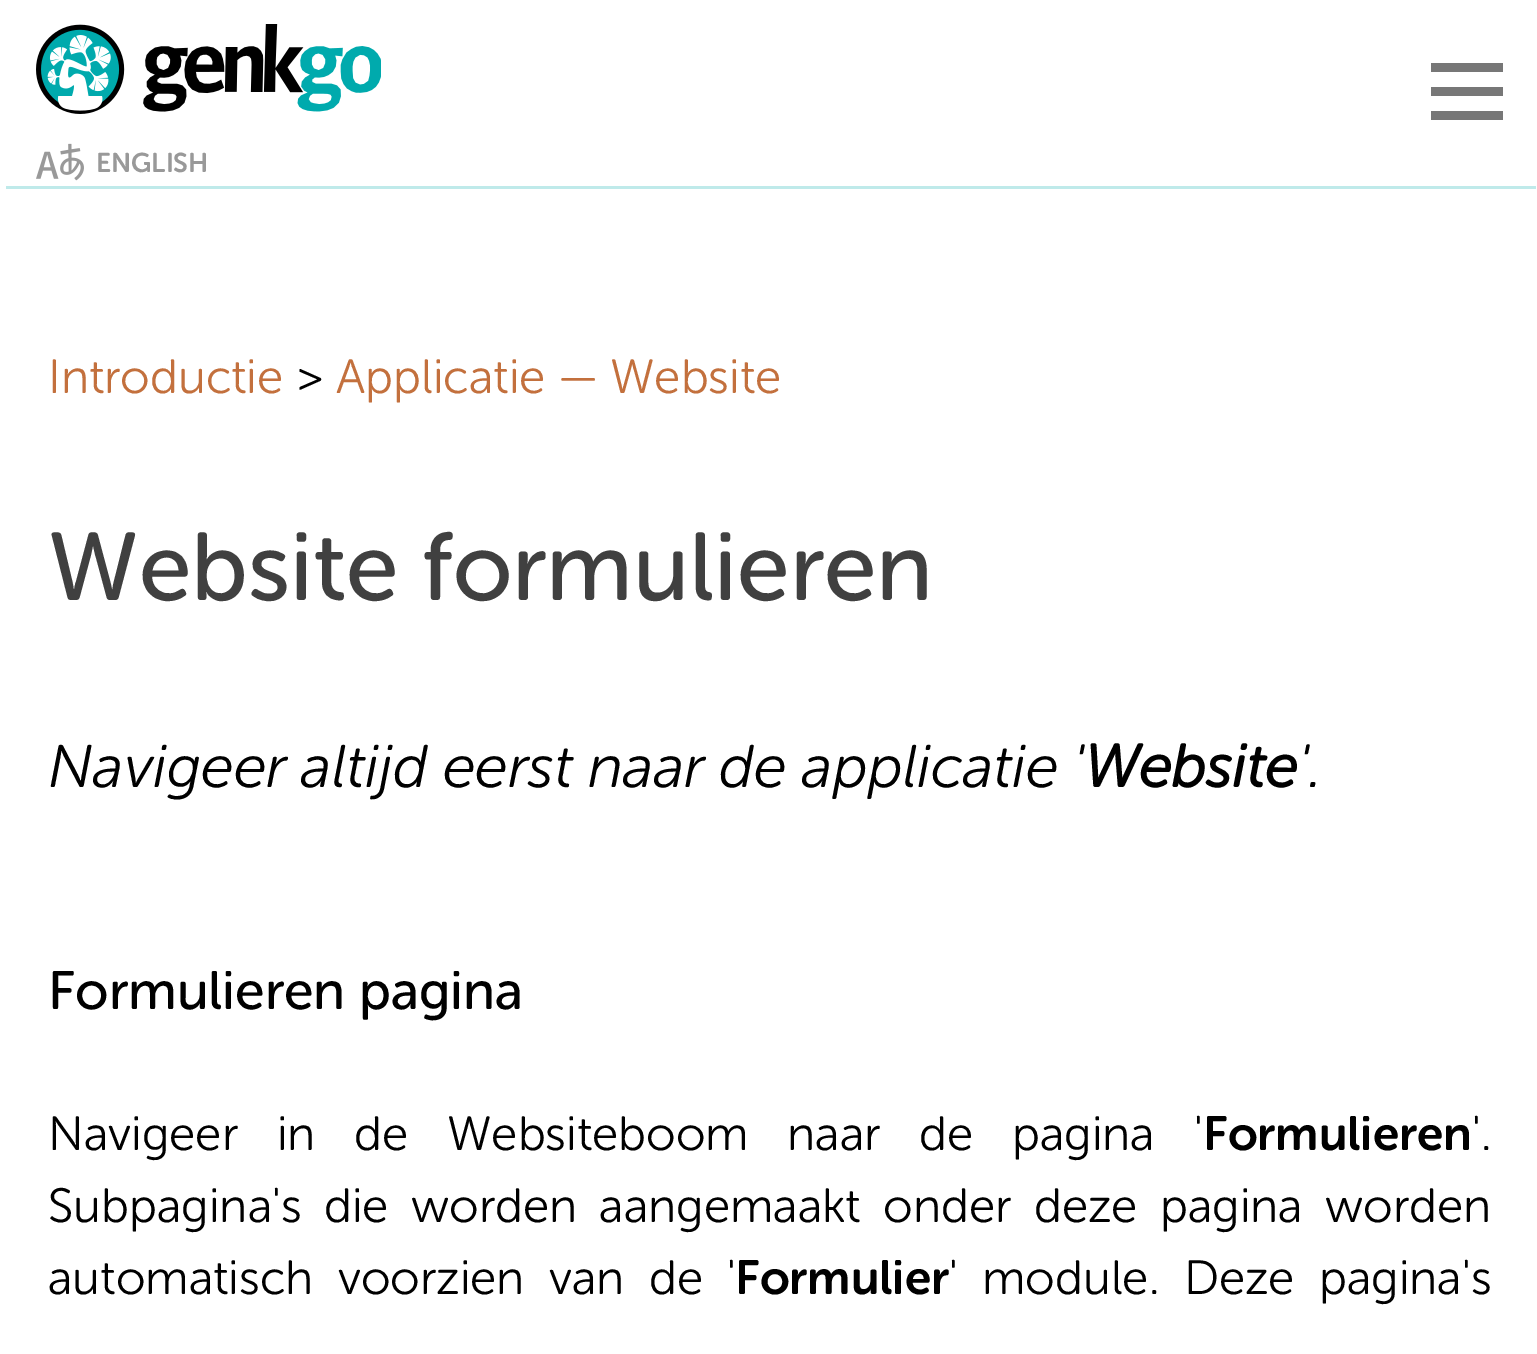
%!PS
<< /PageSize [1537 1354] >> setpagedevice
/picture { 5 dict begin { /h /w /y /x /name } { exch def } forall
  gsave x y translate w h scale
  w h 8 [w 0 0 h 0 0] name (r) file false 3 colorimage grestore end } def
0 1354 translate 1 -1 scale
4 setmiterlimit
1 setgray
0 0 1537 1354 rectfill
0.749 0.918 0.918 setrgbcolor
6 186 1530 3 rectfill
(img1.rgb) 36 24 345 90 picture
0.467 setgray
1431 87 72 9 rectfill
1431 63 72 9 rectfill
1431 111 72 9 rectfill
(img2.rgb) 36 143 48 38 picture
/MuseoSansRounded-SemiBold [27 0 0 -27 0 0] selectfont
0.6 setgray
96 172 moveto (ENGLISH) show
/MuseoSansRounded-Light [48 0 0 -48 0 0] selectfont
0.765 0.439 0.239 setrgbcolor
48 393 moveto (Introductie) show
0 setgray
295 393 moveto (>) show
0.765 0.439 0.239 setrgbcolor
336 393 moveto (Applicatie — Website) show
/MuseoSansRounded-Regular [96 0 0 -96 0 0] selectfont
0.251 setgray
48 600 moveto (Website formulieren) show
/MuseoSansRounded-LightItalic [60 0 0 -60 0 0] selectfont
0 setgray
48 787 moveto (Navigeer altijd eerst naar de applicatie ') show
/MuseoSansRounded-BoldItalic [60 0 0 -60 0 0] selectfont
1084 787 moveto (Website) show
/MuseoSansRounded-LightItalic [60 0 0 -60 0 0] selectfont
1298 787 moveto ('.) show
/MuseoSansRounded-Regular [54 0 0 -54 0 0] selectfont
48 1009 moveto (Formulieren pagina) show
/MuseoSansRounded-Light [48 0 0 -48 0 0] selectfont
48 1150 moveto 26.75 0 32 (Navigeer in de Websiteboom naar de pagina ') widthshow
/MuseoSansRounded-SemiBold [48 0 0 -48 0 0] selectfont
1203 1150 moveto (Formulieren) show
/MuseoSansRounded-Light [48 0 0 -48 0 0] selectfont
1472 1150 moveto ('.) show
48 1222 moveto 10.5 0 32 (Subpagina's die worden aangemaakt onder deze pagina worden) widthshow
48 1294 moveto 12.5 0 32 (automatisch voorzien van de ') widthshow
/MuseoSansRounded-SemiBold [48 0 0 -48 0 0] selectfont
735 1294 moveto (Formulier) show
/MuseoSansRounded-Light [48 0 0 -48 0 0] selectfont
949 1294 moveto (') show
982 1294 moveto 12.5 0 32 (module. Deze pagina's) widthshow
showpage
